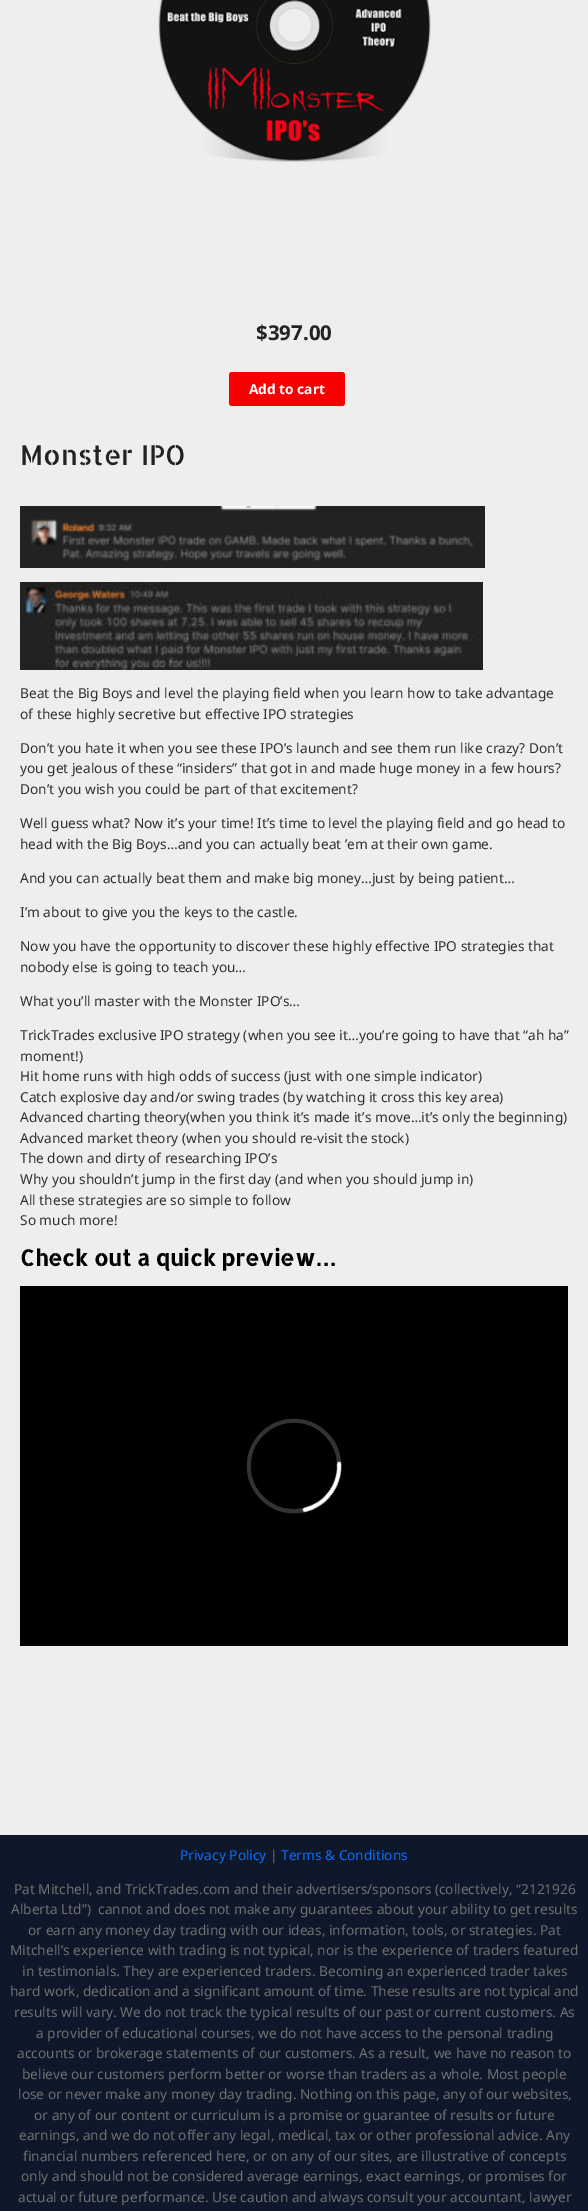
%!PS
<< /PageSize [588 2211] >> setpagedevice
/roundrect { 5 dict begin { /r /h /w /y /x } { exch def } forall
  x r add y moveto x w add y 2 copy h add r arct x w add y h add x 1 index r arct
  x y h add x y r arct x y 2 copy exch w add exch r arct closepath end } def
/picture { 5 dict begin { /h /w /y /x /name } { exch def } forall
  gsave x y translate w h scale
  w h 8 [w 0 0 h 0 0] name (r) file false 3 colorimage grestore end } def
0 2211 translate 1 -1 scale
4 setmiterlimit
0.059 0.09 0.165 setrgbcolor
0 0 588 2211 rectfill
0.933 setgray
0 0 588 1835 rectfill
(img1.rgb) 158 0 273 162 picture
/NotoSans-Bold [20.5 0 0 -20.5 0 0] selectfont
0.133 setgray
256 340 moveto ($397.00) show
0.976 0 0 setrgbcolor
229 372 116 34 3 roundrect fill
/NotoSans-Bold [13.7 0 0 -13.7 0 0] selectfont
1 setgray
249 394 moveto (Add to cart) show
/AllertaStencil-Regular [27.5 0 0 -27.5 0 0] selectfont
0.133 setgray
20 465 moveto (Monster IPO) show
(img2.rgb) 20 506 465 62 picture
(img3.rgb) 20 582 463 88 picture
/NotoSans-Regular [13.7 0 0 -13.7 0 0] selectfont
0.188 setgray
20 698 moveto (Beat the Big Boys and level the playing field when you learn how to take advantage) show
20 719 moveto (of these highly secretive but effective IPO strategies) show
20 753 moveto (Don’t you hate it when you see these IPO’s launch and see them run like crazy? Don’t) show
20 773 moveto (you get jealous of these “insiders” that got in and made huge money in a few hours?) show
20 794 moveto (Don’t you wish you could be part of that excitement?) show
20 828 moveto (Well guess what? Now it’s your time! It’s time to level the playing field and go head to) show
20 849 moveto (head with the Big Boys…and you can actually beat ’em at their own game.) show
20 883 moveto (And you can actually beat them and make big money…just by being patient…) show
20 917 moveto (I’m about to give you the keys to the castle.) show
20 951 moveto (Now you have the opportunity to discover these highly effective IPO strategies that) show
20 972 moveto (nobody else is going to teach you…) show
20 1006 moveto (What you’ll master with the Monster IPO’s…) show
20 1040 moveto (TrickTrades exclusive IPO strategy \(when you see it…you’re going to have that “ah ha”) show
20 1061 moveto (moment!\)) show
20 1081 moveto (Hit home runs with high odds of success \(just with one simple indicator\)) show
20 1102 moveto (Catch explosive day and/or swing trades \(by watching it cross this key area\)) show
20 1122 moveto (Advanced charting theory\(when you think it’s made it’s move…it’s only the beginning\)) show
20 1143 moveto (Advanced market theory \(when you should re-visit the stock\)) show
20 1163 moveto (The down and dirty of researching IPO’s) show
20 1184 moveto (Why you shouldn’t jump in the first day \(and when you should jump in\)) show
20 1205 moveto (All these strategies are so simple to follow) show
20 1225 moveto (So much more!) show
/AllertaStencil-Bold [22.25 0 0 -22.25 0 0] selectfont
0 setgray
20 1266 moveto (Check out a quick preview) show
/LiberationSans-Bold [22.25 0 0 -22.25 0 0] selectfont
315 1266 moveto (…) show
(img4.rgb) 20 1286 548 360 picture
/NotoSans-Regular [13.7 0 0 -13.7 0 0] selectfont
0.051 0.431 0.992 setrgbcolor
180 1860 moveto (Privacy Policy) show
0.439 setgray
270 1860 moveto (|) show
0.051 0.431 0.992 setrgbcolor
281 1860 moveto (Terms & Conditions) show
0.439 setgray
14 1894 moveto (Pat Mitchell, and TrickTrades.com and their advertisers/sponsors \(collectively, “2121926) show
11 1914 moveto (Alberta Ltd”\)  cannot and does not make any guarantees about your ability to get results) show
28 1935 moveto (or earn any money day trading with our ideas, information, tools, or strategies. Pat) show
10 1955 moveto (Mitchell’s experience with trading is not typical, nor is the experience of traders featured) show
22 1976 moveto (in testimonials. They are experienced traders. Becoming an experienced trader takes) show
10 1996 moveto (hard work, dedication and a significant amount of time. These results are not typical and) show
14 2017 moveto (results will vary. We do not track the typical results of our past or current customers. As) show
36 2038 moveto (a provider of educational courses, we do not have access to the personal trading) show
17 2058 moveto (accounts or brokerage statements of our customers. As a result, we have no reason to) show
22 2079 moveto (believe our customers perform better or worse than traders as a whole. Most people) show
18 2099 moveto (lose or never make any money day trading. Nothing on this page, any of our websites,) show
34 2120 moveto (or any of our content or curriculum is a promise or guarantee of results or future) show
19 2140 moveto (earnings, and we do not offer any legal, medical, tax or other professional advice. Any) show
23 2161 moveto (financial numbers referenced here, or on any of our sites, are illustrative of concepts) show
21 2181 moveto (only and should not be considered average earnings, exact earnings, or promises for) show
18 2202 moveto (actual or future performance. Use caution and always consult your accountant, lawyer) show
showpage
